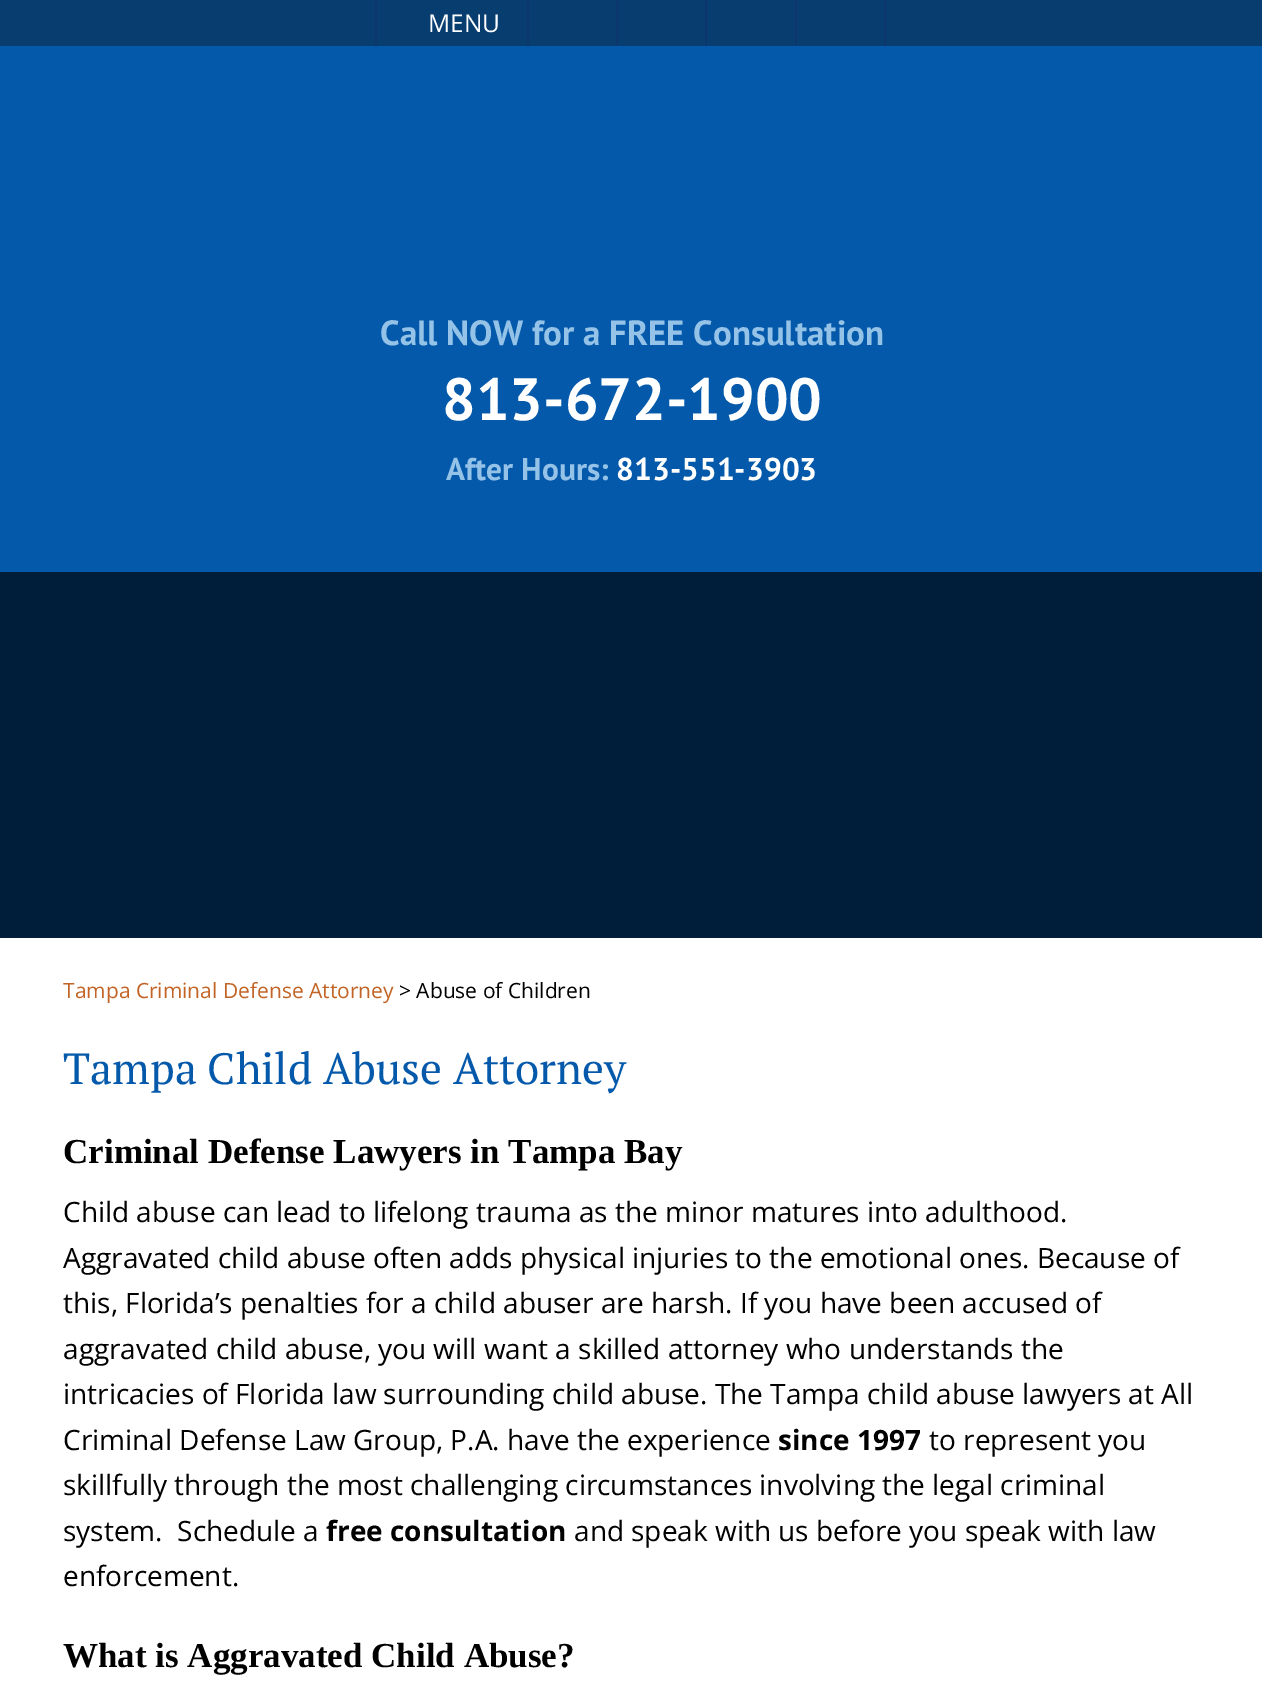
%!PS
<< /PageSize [1262 1685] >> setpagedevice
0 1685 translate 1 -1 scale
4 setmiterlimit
1 setgray
0 0 1262 1685 rectfill
0.027 0.243 0.435 setrgbcolor
0 0 1262 46 rectfill
0.047 0.212 0.427 setrgbcolor
527 0 2 46 rectfill
375 0 2 46 rectfill
/OpenSans-Regular [24.5 0 0 -24.5 0 0] selectfont
1 setgray
428 32 moveto (MENU) show
0.047 0.212 0.427 setrgbcolor
616 0 2 46 rectfill
705 0 2 46 rectfill
795 0 2 46 rectfill
884 0 2 46 rectfill
0.016 0.349 0.667 setrgbcolor
0 46 1262 526 rectfill
/PTSans-Bold [35 0 0 -35 0 0] selectfont
0.584 0.765 0.91 setrgbcolor
380 345 moveto (Call NOW for a FREE Consultation) show
/PTSans-Bold [59.5 0 0 -59.5 0 0] selectfont
1 setgray
442 420 moveto (813-672-1900) show
/PTSans-Bold [31.5 0 0 -31.5 0 0] selectfont
0.584 0.765 0.91 setrgbcolor
446 480 moveto (After Hours:) show
1 setgray
616 480 moveto (813-551-3903) show
0 0.118 0.227 setrgbcolor
0 572 1262 366 rectfill
/OpenSans-Regular [21 0 0 -21 0 0] selectfont
0.761 0.392 0.145 setrgbcolor
63 998 moveto (Tampa Criminal Defense Attorney) show
0 setgray
399 998 moveto (> Abuse of Children) show
/PTSerif-Regular [43.75 0 0 -43.75 0 0] selectfont
0.016 0.349 0.667 setrgbcolor
63 1084 moveto (Tampa Child Abuse Attorney) show
/LiberationSerif-Bold [35 0 0 -35 0 0] selectfont
0 setgray
63 1163 moveto (Criminal Defense Lawyers in Tampa Bay) show
/OpenSans-Regular [28 0 0 -28 0 0] selectfont
63 1222 moveto (Child abuse can lead to lifelong trauma as the minor matures into adulthood.) show
63 1268 moveto (Aggravated child abuse often adds physical injuries to the emotional ones. Because of) show
63 1313 moveto (this, Florida’s penalties for a child abuser are harsh. If you have been accused of) show
63 1359 moveto (aggravated child abuse, you will want a skilled attorney who understands the) show
63 1404 moveto (intricacies of Florida law surrounding child abuse. The Tampa child abuse lawyers at All) show
63 1450 moveto (Criminal Defense Law Group, P.A. have the experience) show
/OpenSans-Bold [28 0 0 -28 0 0] selectfont
778 1450 moveto (since 1997) show
/OpenSans-Regular [28 0 0 -28 0 0] selectfont
929 1450 moveto (to represent you) show
63 1495 moveto (skillfully through the most challenging circumstances involving the legal criminal) show
63 1541 moveto (system.  Schedule a) show
/OpenSans-Bold [28 0 0 -28 0 0] selectfont
326 1541 moveto (free consultation) show
/OpenSans-Regular [28 0 0 -28 0 0] selectfont
574 1541 moveto (and speak with us before you speak with law) show
63 1586 moveto (enforcement.) show
/LiberationSerif-Bold [35 0 0 -35 0 0] selectfont
63 1667 moveto (What is Aggravated Child Abuse?) show
showpage
